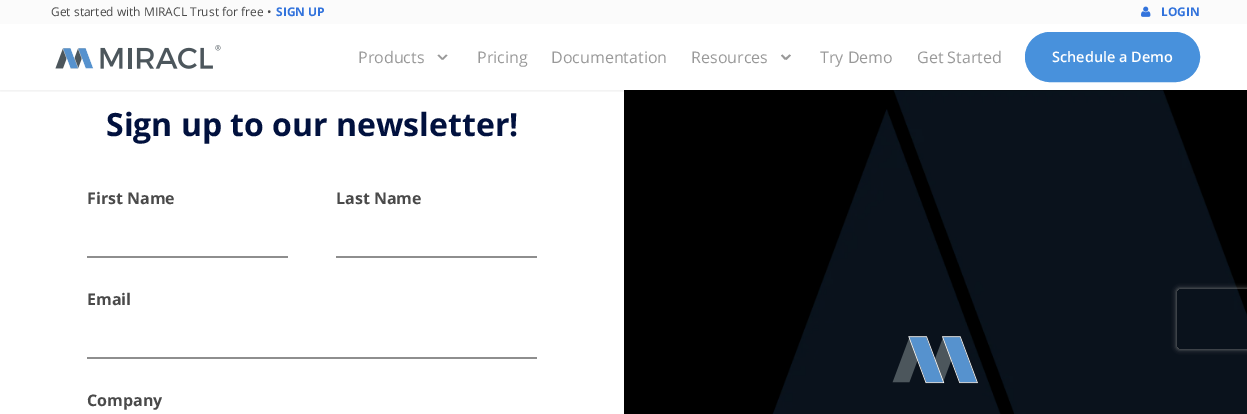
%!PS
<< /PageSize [1247 414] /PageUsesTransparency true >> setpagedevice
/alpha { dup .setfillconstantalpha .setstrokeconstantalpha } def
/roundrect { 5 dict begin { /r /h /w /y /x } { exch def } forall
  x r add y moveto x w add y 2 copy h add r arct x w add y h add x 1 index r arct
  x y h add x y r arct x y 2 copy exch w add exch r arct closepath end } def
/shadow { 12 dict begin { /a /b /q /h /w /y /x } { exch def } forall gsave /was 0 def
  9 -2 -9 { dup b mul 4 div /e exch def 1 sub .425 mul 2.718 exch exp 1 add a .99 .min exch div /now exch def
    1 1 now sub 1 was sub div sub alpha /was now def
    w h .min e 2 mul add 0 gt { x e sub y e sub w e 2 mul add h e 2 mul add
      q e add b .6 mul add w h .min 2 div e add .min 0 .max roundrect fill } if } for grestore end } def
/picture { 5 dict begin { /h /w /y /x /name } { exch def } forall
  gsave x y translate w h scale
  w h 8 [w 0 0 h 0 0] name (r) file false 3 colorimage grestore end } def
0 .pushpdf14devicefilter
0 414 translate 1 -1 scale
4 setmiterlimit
1 setgray
0 0 1247 414 rectfill
0 setgray
624 90 623 324 rectfill
(img3.rgb) 772 90 475 324 picture
gsave
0 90 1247 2 rectclip
0 0 1247 90 0 2.5 0.1 shadow
grestore
0.984 setgray
0 0 1247 24 rectfill
/OpenSans-Regular [12 0 0 -12 0 0] selectfont
0.29 setgray
51 16 moveto (Get started with MIRACL Trust for free) show
267 16 moveto (•) show
/OpenSans-Bold [12 0 0 -12 0 0] selectfont
0.196 0.451 0.863 setrgbcolor
276 16 moveto (SIGN UP) show
(img1.rgb) 1141 6 10 11 picture
1161 16 moveto (LOGIN) show
(img2.rgb) 55 45 166 24 picture
/OpenSans-Regular [16 0 0 -16 0 0] selectfont
0.6 setgray
358 63 moveto (Products) show
newpath 442 58.5 moveto 446 54.5 lineto 447.5 55.5 lineto 443 60 lineto closepath fill
newpath 437.5 55.5 moveto 439 54.5 lineto 443 58.5 lineto 442 60 lineto closepath fill
477 63 moveto (Pricing) show
551 63 moveto (Documentation) show
691 63 moveto (Resources) show
newpath 785 58.5 moveto 789.5 54.5 lineto 791 55.5 lineto 786.5 60 lineto closepath fill
newpath 781 55.5 moveto 782.5 54.5 lineto 786.5 58.5 lineto 785 60 lineto closepath fill
820 63 moveto (Try Demo) show
917 63 moveto (Get Started) show
0.282 0.569 0.863 setrgbcolor
1025.5 32.5 174 49 24.5 roundrect gsave fill grestore
stroke
/OpenSans-SemiBold [14.5 0 0 -14.5 0 0] selectfont
1 setgray
1052 62 moveto (Schedule a Demo) show
/OpenSans-Bold [32 0 0 -32 0 0] selectfont
0.004 0.067 0.243 setrgbcolor
106 136 moveto (Sign up to our newsletter!) show
/OpenSans-Bold [16 0 0 -16 0 0] selectfont
0.29 setgray
87 204 moveto (First Name) show
0.557 setgray
87 256 201 2 rectfill
0.29 setgray
336 204 moveto (Last Name) show
0.557 setgray
336 256 201 2 rectfill
0.29 setgray
87 305 moveto (Email) show
0.557 setgray
87 357 450 2 rectfill
0.29 setgray
87 406 moveto (Company) show
(img4.rgb) 892 336 86 48 picture
gsave
newpath 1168 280 moveto 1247 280 lineto 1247 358 lineto 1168 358 lineto closepath 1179 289 moveto 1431 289 lineto 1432 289 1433 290 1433 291 curveto 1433 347 lineto 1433 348 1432 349 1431 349 curveto 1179 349 lineto 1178 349 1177 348 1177 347 curveto 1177 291 lineto 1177 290 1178 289 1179 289 curveto closepath eoclip newpath
0.502 setgray
1177 289 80 60 2 2.5 1 shadow
grestore
.poppdf14devicefilter showpage
